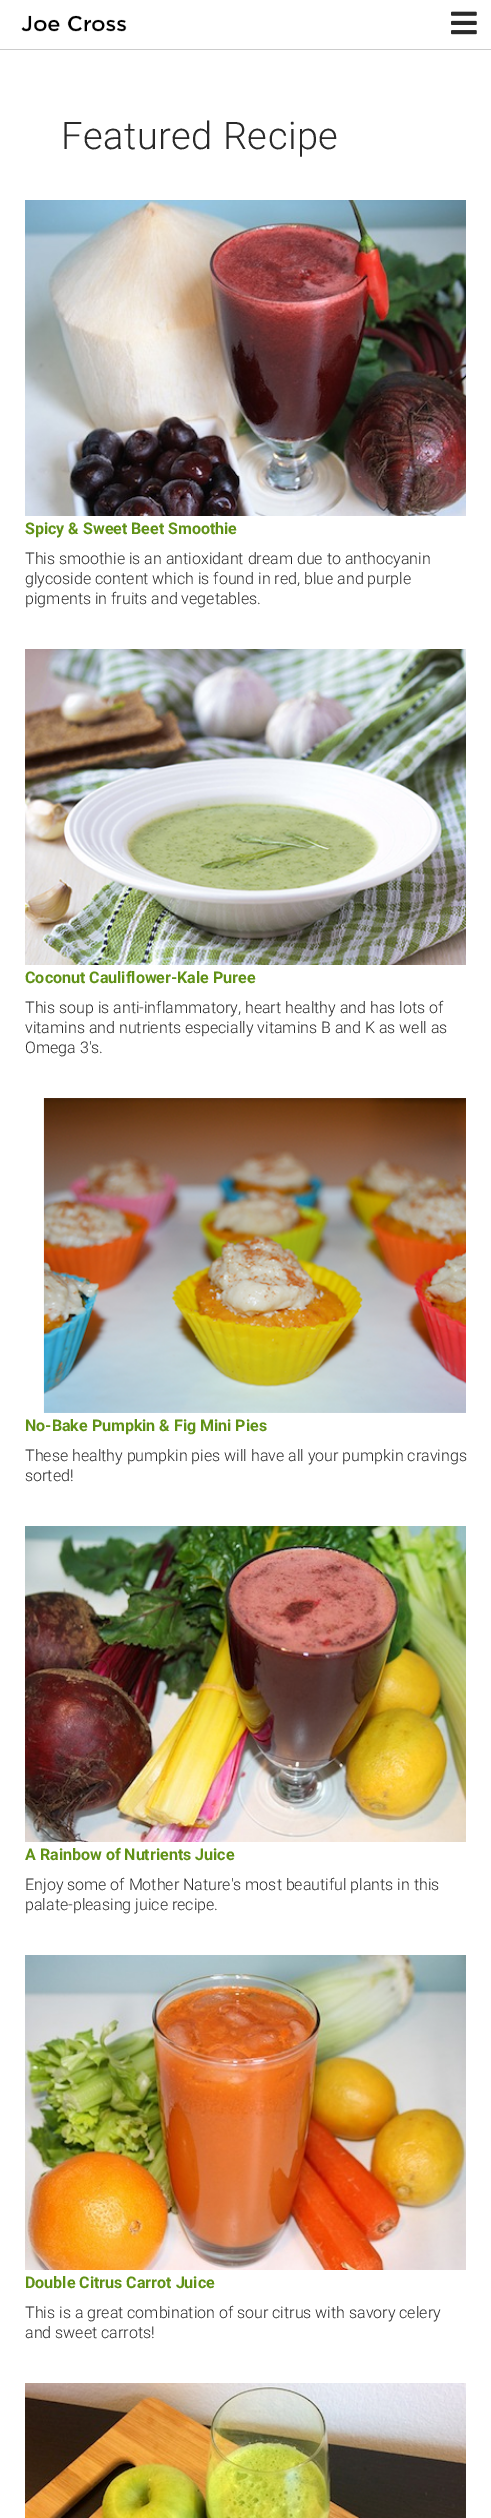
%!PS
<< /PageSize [491 2518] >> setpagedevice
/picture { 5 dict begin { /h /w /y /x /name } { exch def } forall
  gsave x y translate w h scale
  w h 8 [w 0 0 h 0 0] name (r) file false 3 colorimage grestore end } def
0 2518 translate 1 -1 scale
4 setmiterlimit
1 setgray
0 0 491 2518 rectfill
0.8 setgray
0 49 491 1 rectfill
(img1.rgb) 21 15 106 17 picture
(img2.rgb) 451 11 26 24 picture
/Roboto-Light [38 0 0 -38 0 0] selectfont
0.161 setgray
61 149 moveto 0.5 0 (Featured Recipe) ashow
(img3.rgb) 25 200 441 316 picture
/Roboto-Bold [16 0 0 -16 0 0] selectfont
0.376 0.569 0.086 setrgbcolor
25 534 moveto (Spicy & Sweet Beet Smoothie) show
/Roboto-Light [16 0 0 -16 0 0] selectfont
0.161 setgray
25 564 moveto (This smoothie is an antioxidant dream due to anthocyanin) show
25 584 moveto (glycoside content which is found in red, blue and purple) show
25 604 moveto (pigments in fruits and vegetables.) show
(img4.rgb) 25 649 441 316 picture
/Roboto-Bold [16 0 0 -16 0 0] selectfont
0.376 0.569 0.086 setrgbcolor
25 983 moveto (Coconut Cauliflower-Kale Puree) show
/Roboto-Light [16 0 0 -16 0 0] selectfont
0.161 setgray
25 1013 moveto (This soup is anti-inflammatory, heart healthy and has lots of) show
25 1033 moveto (vitamins and nutrients especially vitamins B and K as well as) show
25 1053 moveto (Omega 3's.) show
(img5.rgb) 43 1098 423 315 picture
/Roboto-Bold [16 0 0 -16 0 0] selectfont
0.376 0.569 0.086 setrgbcolor
25 1431 moveto (No-Bake Pumpkin & Fig Mini Pies) show
/Roboto-Light [16 0 0 -16 0 0] selectfont
0.161 setgray
25 1461 moveto (These healthy pumpkin pies will have all your pumpkin cravings) show
25 1481 moveto (sorted!) show
(img6.rgb) 25 1526 441 316 picture
/Roboto-Bold [16 0 0 -16 0 0] selectfont
0.376 0.569 0.086 setrgbcolor
25 1860 moveto (A Rainbow of Nutrients Juice) show
/Roboto-Light [16 0 0 -16 0 0] selectfont
0.161 setgray
25 1890 moveto (Enjoy some of Mother Nature's most beautiful plants in this) show
25 1910 moveto (palate-pleasing juice recipe.) show
(img7.rgb) 25 1955 441 315 picture
/Roboto-Bold [16 0 0 -16 0 0] selectfont
0.376 0.569 0.086 setrgbcolor
25 2288 moveto (Double Citrus Carrot Juice) show
/Roboto-Light [16 0 0 -16 0 0] selectfont
0.161 setgray
25 2318 moveto (This is a great combination of sour citrus with savory celery) show
25 2338 moveto (and sweet carrots!) show
(img8.rgb) 25 2383 441 135 picture
showpage
